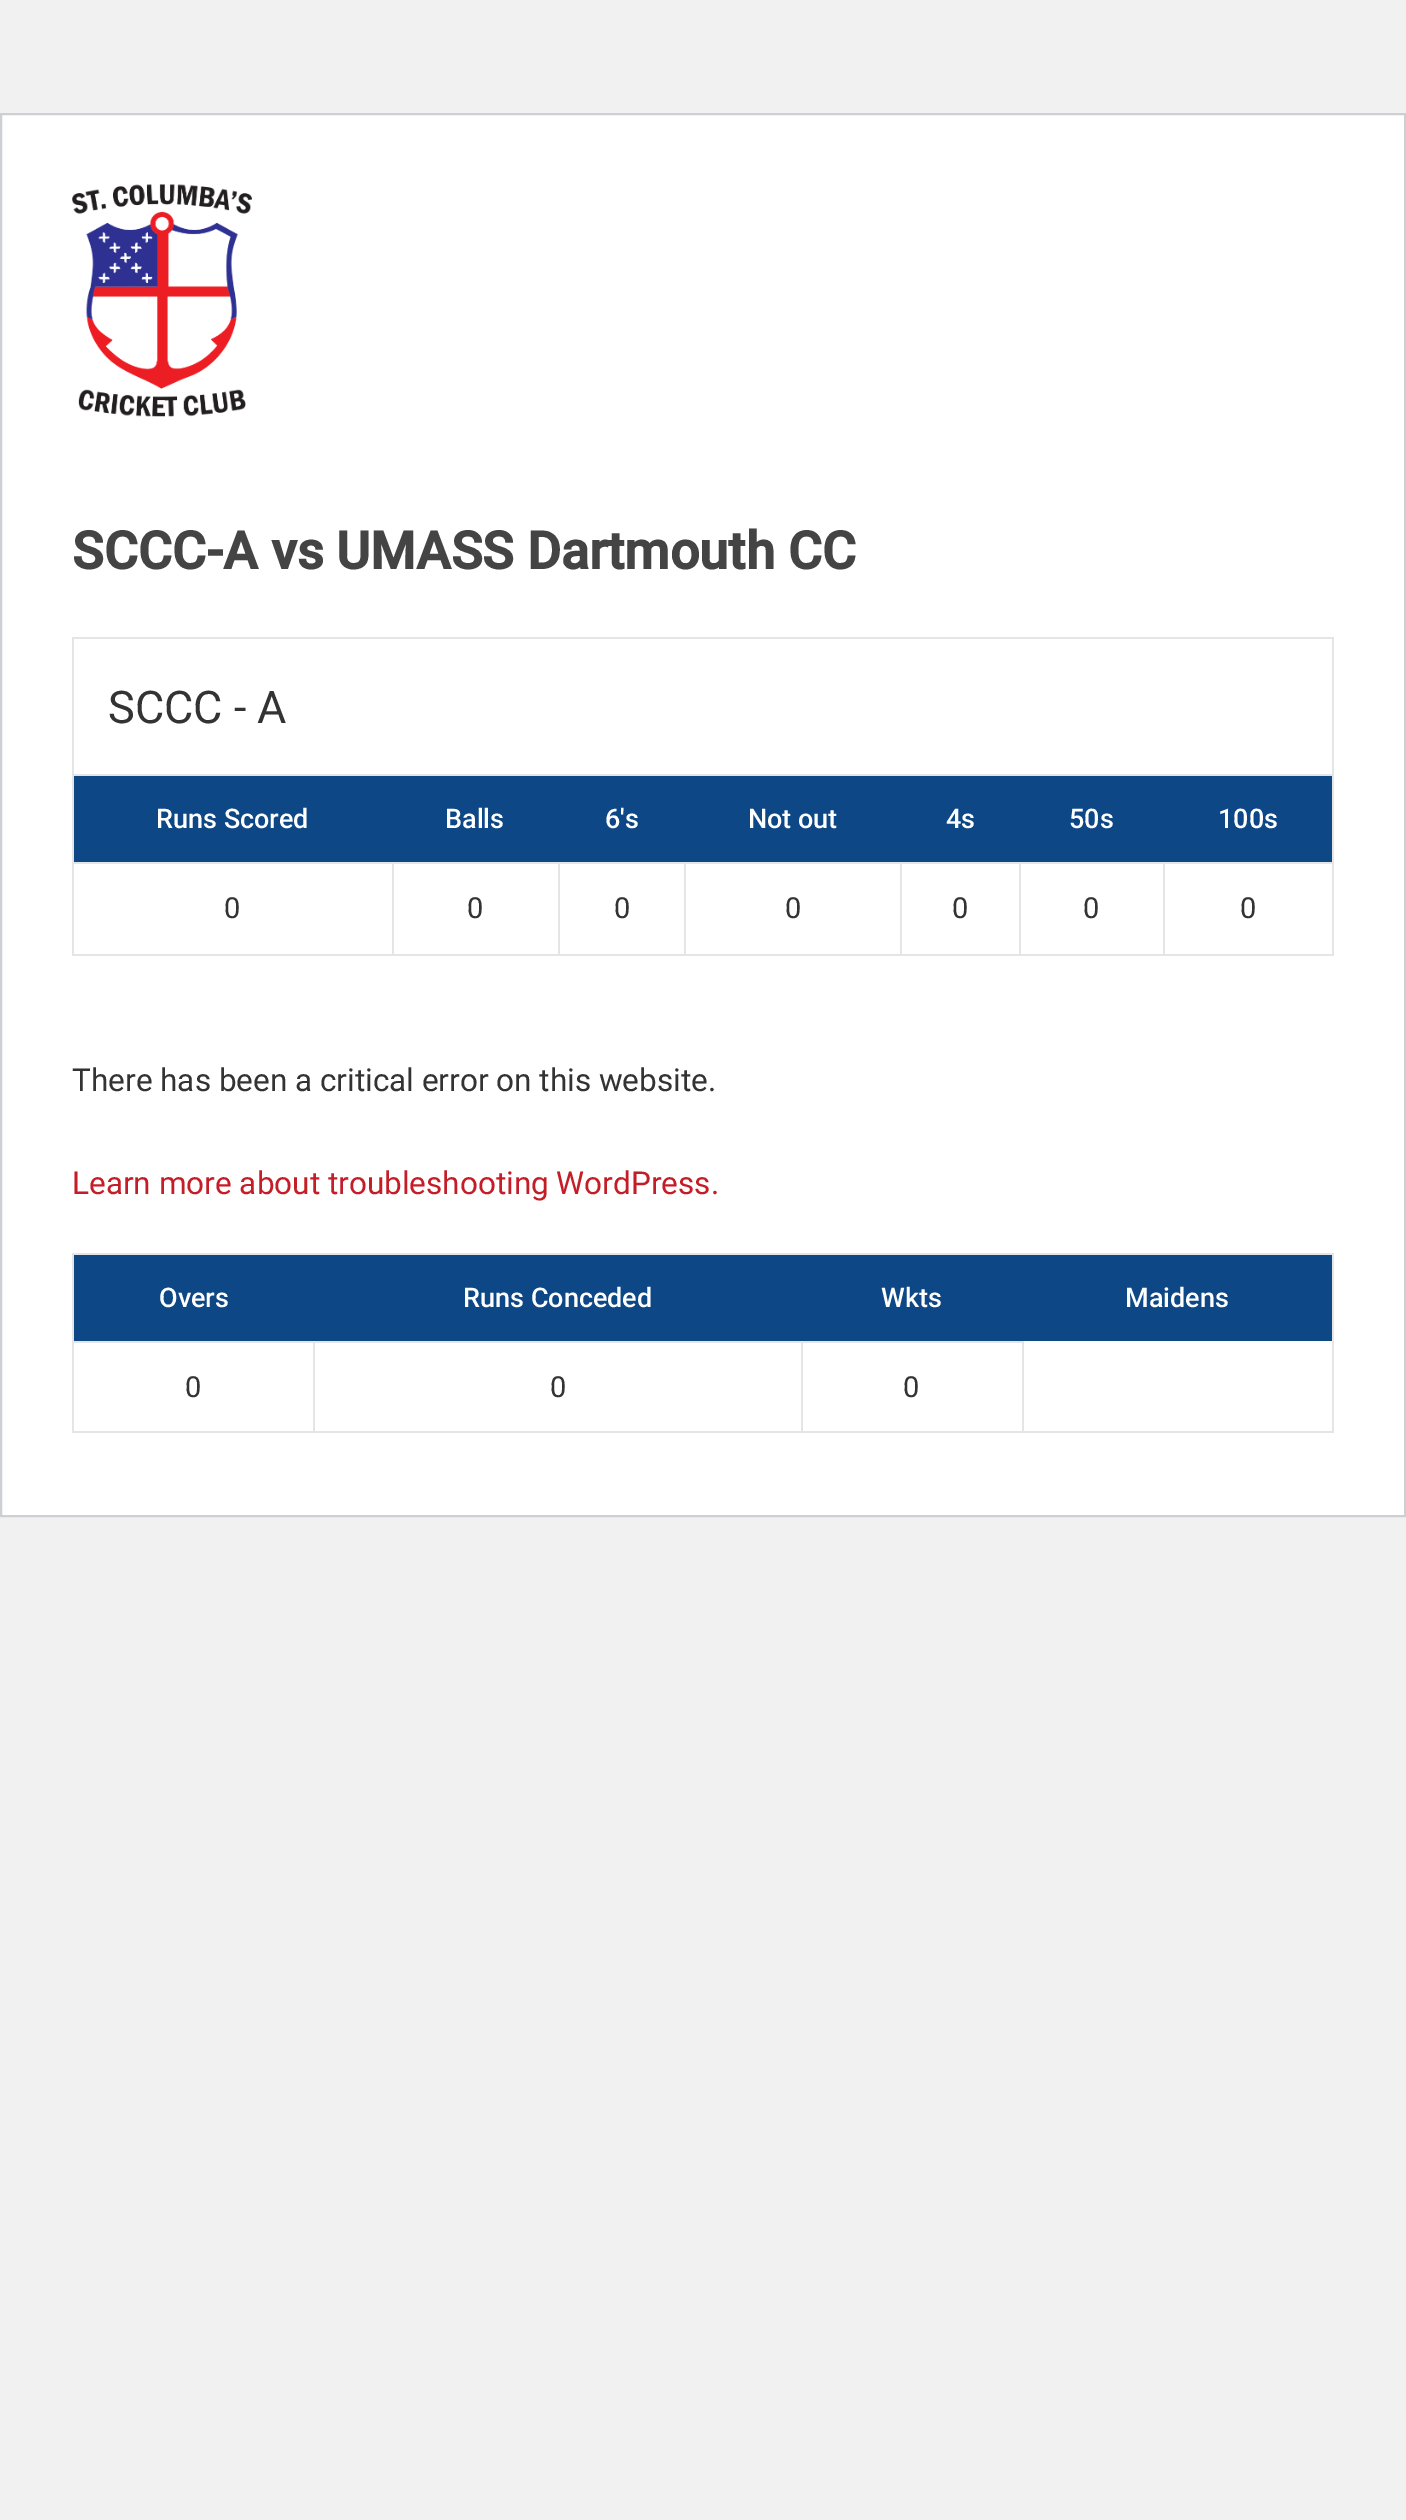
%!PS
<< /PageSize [1406 2520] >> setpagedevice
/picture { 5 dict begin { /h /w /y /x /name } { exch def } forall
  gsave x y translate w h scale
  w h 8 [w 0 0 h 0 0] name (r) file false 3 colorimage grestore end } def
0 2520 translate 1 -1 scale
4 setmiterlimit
0.945 setgray
0 0 1406 2520 rectfill
1 setgray
newpath 1 114 moveto 1405 114 lineto 1405 1516 lineto 1 1516 lineto closepath gsave fill grestore
0.8 0.816 0.831 setrgbcolor
2 setlinewidth
stroke
(img1.rgb) 72 184 180 233 picture
/Roboto-Bold [52.1 0 0 -52.1 0 0] selectfont
0.267 setgray
72 569 moveto (SCCC-A vs UMASS Dartmouth CC) show
0.898 setgray
72 637 1262 2 rectfill
1332 637 2 137 rectfill
72 637 2 137 rectfill
/Roboto-Regular [45 0 0 -45 0 0] selectfont
0.2 setgray
108 723 moveto (SCCC - A) show
0.898 setgray
72 774 1262 2 rectfill
1332 774 2 182 rectfill
72 954 1262 2 rectfill
72 774 2 182 rectfill
0.051 0.278 0.522 setrgbcolor
74 776 1258 86 rectfill
/Roboto-Medium [27 0 0 -27 0 0] selectfont
1 setgray
156 828 moveto (Runs Scored) show
445 828 moveto (Balls) show
605 828 moveto (6's) show
748 828 moveto (Not out) show
946 828 moveto (4s) show
1069 828 moveto (50s) show
1218 828 moveto (100s) show
0.898 setgray
1163 862 171 2 rectfill
1163 862 2 94 rectfill
1019 862 147 2 rectfill
1019 862 2 94 rectfill
900 862 122 2 rectfill
900 862 2 94 rectfill
684 862 218 2 rectfill
684 862 2 94 rectfill
558 862 128 2 rectfill
558 862 2 94 rectfill
392 862 168 2 rectfill
392 862 2 94 rectfill
72 862 322 2 rectfill
/Roboto-Regular [29 0 0 -29 0 0] selectfont
0.2 setgray
224 918 moveto (0) show
467 918 moveto (0) show
614 918 moveto (0) show
785 918 moveto (0) show
952 918 moveto (0) show
1083 918 moveto (0) show
1240 918 moveto (0) show
/Roboto-Regular [31.5 0 0 -31.5 0 0] selectfont
72 1091 moveto (There has been a critical error on this website.) show
0.773 0.114 0.153 setrgbcolor
72 1194 moveto (Learn more about troubleshooting WordPress.) show
0.898 setgray
72 1253 1262 2 rectfill
1332 1253 2 180 rectfill
72 1431 1262 2 rectfill
72 1253 2 180 rectfill
0.051 0.278 0.522 setrgbcolor
74 1255 1258 86 rectfill
/Roboto-Medium [27 0 0 -27 0 0] selectfont
1 setgray
159 1307 moveto (Overs) show
463 1307 moveto (Runs Conceded) show
881 1307 moveto (Wkts) show
1125 1307 moveto (Maidens) show
0.898 setgray
801 1341 223 2 rectfill
801 1341 2 92 rectfill
313 1341 490 2 rectfill
313 1341 2 92 rectfill
72 1341 243 2 rectfill
/Roboto-Regular [29 0 0 -29 0 0] selectfont
0.2 setgray
185 1397 moveto (0) show
550 1397 moveto (0) show
0.898 setgray
1022 1341 2 92 rectfill
0.2 setgray
903 1397 moveto (0) show
showpage
